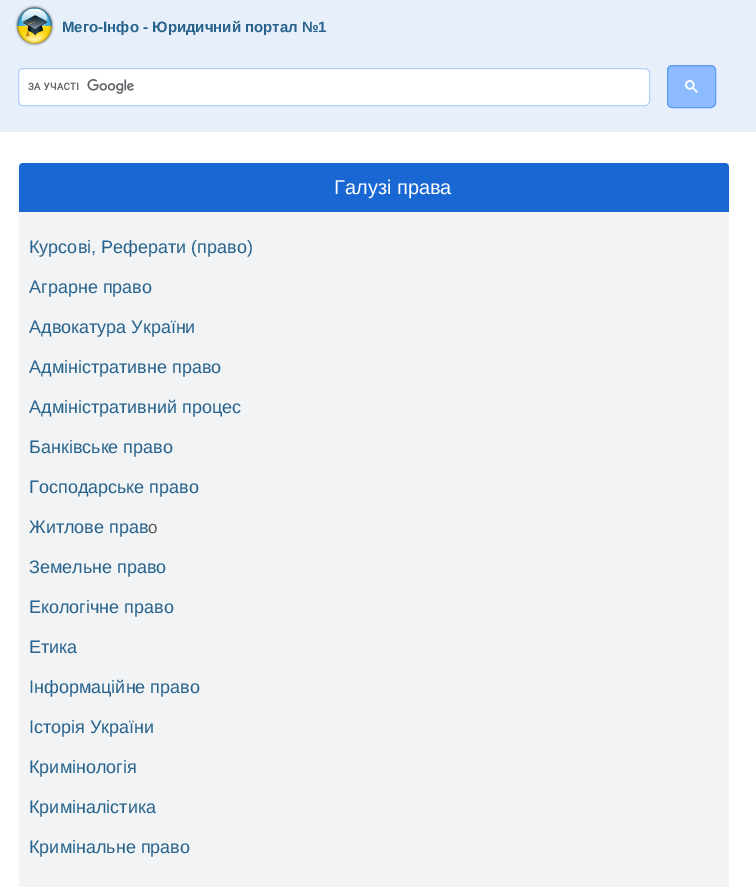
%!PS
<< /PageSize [756 887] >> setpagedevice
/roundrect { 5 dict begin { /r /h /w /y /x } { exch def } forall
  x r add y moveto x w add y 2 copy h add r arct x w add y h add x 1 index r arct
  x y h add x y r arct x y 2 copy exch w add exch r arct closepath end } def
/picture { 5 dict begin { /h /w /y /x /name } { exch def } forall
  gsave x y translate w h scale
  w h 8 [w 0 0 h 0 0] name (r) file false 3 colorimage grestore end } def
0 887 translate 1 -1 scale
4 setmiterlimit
1 setgray
0 0 756 887 rectfill
0.906 0.937 0.98 setrgbcolor
0 0 756 132 rectfill
(img1.rgb) 15 5 39 41 picture
/LiberationSans-Bold [15 0 0 -15 0 0] selectfont
0.153 0.388 0.549 setrgbcolor
62 32 moveto (Мего-Інфо - Юридичний портал №1) show
1 setgray
18.5 68.5 631 37 4.5 roundrect gsave fill grestore
0.706 0.82 0.992 setrgbcolor
stroke
(img2.rgb) 28 79 106 15 picture
0.549 0.733 1 setrgbcolor
667.5 65.5 48 42 4.5 roundrect gsave fill grestore
0.369 0.604 0.949 setrgbcolor
stroke
(img3.rgb) 685 80 13 13 picture
0.945 0.953 0.957 setrgbcolor
19 163 710 724 rectfill
0.098 0.404 0.824 setrgbcolor
newpath 23 163 moveto 725 163 lineto 727 163 729 165 729 167 curveto 729 212 lineto 19 212 lineto 19 167 lineto 19 165 21 163 23 163 curveto closepath fill
/LiberationSans-Regular [20 0 0 -20 0 0] selectfont
1 setgray
334 194 moveto (Галузі права) show
/LiberationSans-Regular [18 0 0 -18 0 0] selectfont
0.153 0.388 0.549 setrgbcolor
29 253 moveto (Курсові, Реферати \(право\)) show
29 293 moveto (Аграрне право) show
29 333 moveto (Адвокатура України) show
29 373 moveto (Адміністративне право) show
29 413 moveto (Адміністративний процес) show
29 453 moveto (Банківське право) show
29 493 moveto (Господарське право) show
29 533 moveto (Житлове прав) show
/LiberationSans-Regular [17 0 0 -17 0 0] selectfont
0.333 setgray
148 533 moveto (о) show
/LiberationSans-Regular [18 0 0 -18 0 0] selectfont
0.153 0.388 0.549 setrgbcolor
29 573 moveto (Земельне право) show
29 613 moveto (Екологічне право) show
29 653 moveto (Етика) show
29 693 moveto (Інформаційне право) show
29 733 moveto (Історія України) show
29 773 moveto (Кримінологія) show
29 813 moveto (Криміналістика) show
29 853 moveto (Кримінальне право) show
showpage
